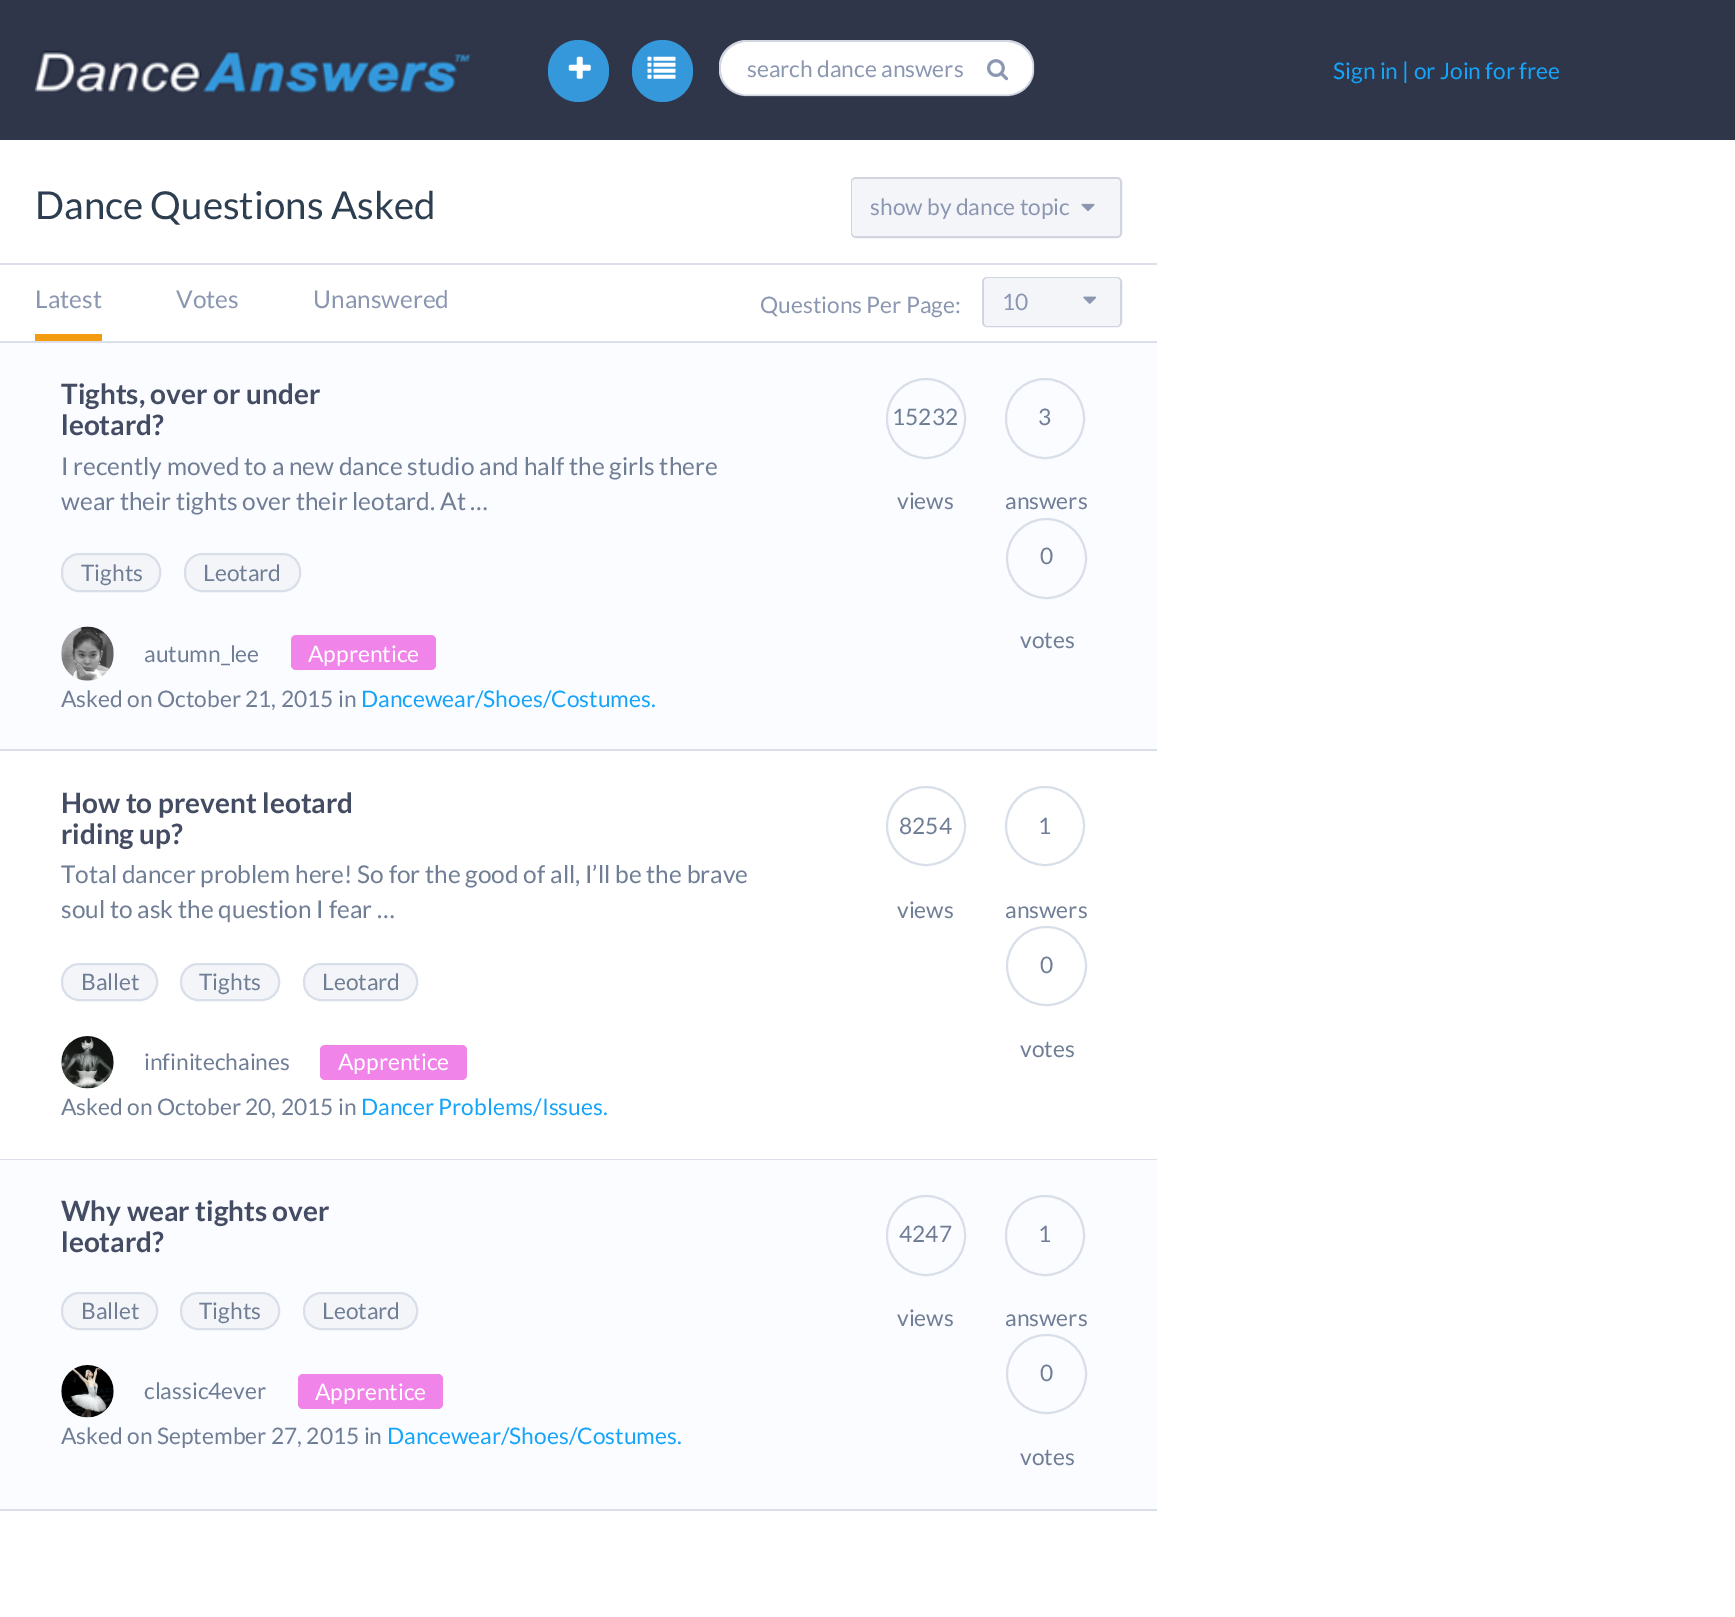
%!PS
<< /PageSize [1735 1617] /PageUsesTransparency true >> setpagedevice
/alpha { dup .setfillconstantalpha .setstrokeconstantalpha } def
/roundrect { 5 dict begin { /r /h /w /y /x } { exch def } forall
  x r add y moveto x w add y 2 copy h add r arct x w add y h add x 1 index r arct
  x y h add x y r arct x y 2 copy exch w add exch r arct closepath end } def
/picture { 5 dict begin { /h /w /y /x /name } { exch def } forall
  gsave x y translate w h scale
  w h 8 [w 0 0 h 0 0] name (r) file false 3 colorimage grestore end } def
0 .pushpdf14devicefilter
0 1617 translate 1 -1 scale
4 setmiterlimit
1 setgray
0 0 1735 1617 rectfill
0.184 0.212 0.29 setrgbcolor
0 0 1735 140 rectfill
(img1.rgb) 35 50 436 43 picture
0.204 0.596 0.859 setrgbcolor
548 40 61 62 30.5 roundrect fill
(img2.rgb) 568 56 23 23 picture
632 40 61 62 30.5 roundrect fill
(img3.rgb) 647 56 29 23 picture
1 setgray
newpath 747 40 moveto 1006 40 lineto 1022 40 1034 52 1034 66 curveto 1034 70 lineto 1034 84 1022 96 1006 96 curveto 747 96 lineto 732 96 719 84 719 70 curveto 719 66 lineto 719 52 732 40 747 40 curveto closepath fill
0.4 alpha
0.549 0.592 0.698 setrgbcolor
1.8 setlinewidth
newpath 747 41 moveto 1006 41 lineto 1021 41 1033.5 52.5 1033.5 66.5 curveto 1033.5 70 lineto 1033.5 84 1021 95.5 1006 95.5 curveto 747 95.5 lineto 732.5 95.5 720 84 720 70 curveto 720 66.5 lineto 720 52.5 732.5 41 747 41 curveto closepath stroke
/Lato-Regular [22.75 0 0 -22.75 0 0] selectfont
1 alpha
0.545 0.592 0.694 setrgbcolor
747 77 moveto (search dance answers) show
(img4.rgb) 987 59 22 22 picture
0.082 0.643 0.98 setrgbcolor
1333 79 moveto (Sign in | or Join for free) show
0.855 0.875 0.918 setrgbcolor
0 263 1157 2 rectfill
/Lato-Regular [38.5 0 0 -38.5 0 0] selectfont
0.173 0.243 0.314 setrgbcolor
35 219 moveto (Dance Questions Asked) show
0.82 0.835 0.878 setrgbcolor
2 setlinewidth
852 178 269 59 4 roundrect stroke
0.957 0.961 0.976 setrgbcolor
852 179 268 57 4 roundrect fill
/Lato-Regular [22.75 0 0 -22.75 0 0] selectfont
0.545 0.592 0.694 setrgbcolor
870 215 moveto (show by dance topic) show
(img5.rgb) 1081 203 14 9 picture
0.855 0.875 0.918 setrgbcolor
0 341 1157 2 rectfill
0.953 0.612 0.071 setrgbcolor
35 334 67 7 rectfill
/Lato-Regular [24.5 0 0 -24.5 0 0] selectfont
0.545 0.592 0.694 setrgbcolor
35 308 moveto (Latest) show
176 308 moveto (Votes) show
313 308 moveto (Unanswered) show
/Lato-Regular [22.75 0 0 -22.75 0 0] selectfont
760 313 moveto (Questions Per Page:) show
0.82 0.835 0.878 setrgbcolor
983 278 138 48 4 roundrect stroke
0.957 0.961 0.976 setrgbcolor
984 278 136 48 4 roundrect fill
0.545 0.592 0.694 setrgbcolor
1002 310 moveto (10) show
(img6.rgb) 1083 296 14 8 picture
0.984 0.988 1 setrgbcolor
0 343 1157 406 rectfill
0.855 0.875 0.918 setrgbcolor
0 749 1157 2 rectfill
/Lato-Bold [28 0 0 -28 0 0] selectfont
0.267 0.298 0.388 setrgbcolor
61 404 moveto (Tights, over or under) show
61 435 moveto (leotard?) show
/Lato-Regular [24.5 0 0 -24.5 0 0] selectfont
0.435 0.49 0.584 setrgbcolor
61 475 moveto (I recently moved to a new dance studio and half the girls there) show
61 510 moveto (wear their tights over their leotard. At …) show
0.953 0.961 0.976 setrgbcolor
62 554 98 37 17 roundrect gsave fill grestore
0.851 0.875 0.914 setrgbcolor
stroke
/Lato-Regular [22.75 0 0 -22.75 0 0] selectfont
0.435 0.49 0.584 setrgbcolor
81 581 moveto (Tights) show
0.953 0.961 0.976 setrgbcolor
185 554 115 37 17 roundrect gsave fill grestore
0.851 0.875 0.914 setrgbcolor
stroke
0.435 0.49 0.584 setrgbcolor
203 581 moveto (Leotard) show
(img7.rgb) 61 626 53 55 picture
144 662 moveto (autumn_lee) show
0.941 0.518 0.914 setrgbcolor
291 635 145 35 5 roundrect fill
1 setgray
308 662 moveto (Apprentice) show
0.435 0.49 0.584 setrgbcolor
61 707 moveto (Asked on October 21, 2015 in) show
0.082 0.643 0.98 setrgbcolor
361 707 moveto (Dancewear/Shoes/Costumes.) show
0.851 0.875 0.914 setrgbcolor
887 379 78 79 39 roundrect stroke
0.435 0.49 0.584 setrgbcolor
892 425 moveto (15232) show
897 509 moveto (views) show
0.851 0.875 0.914 setrgbcolor
1006 379 78 79 39 roundrect stroke
0.435 0.49 0.584 setrgbcolor
1038 425 moveto (3) show
1005 509 moveto (answers) show
0.851 0.875 0.914 setrgbcolor
newpath 1046.5 558.5 39.5 0 360 arc closepath stroke
0.435 0.49 0.584 setrgbcolor
1040 564 moveto (0) show
1020 648 moveto (votes) show
0.855 0.875 0.918 setrgbcolor
0 1159 1157 1 rectfill
/Lato-Bold [28 0 0 -28 0 0] selectfont
0.267 0.298 0.388 setrgbcolor
61 813 moveto (How to prevent leotard) show
61 844 moveto (riding up?) show
/Lato-Regular [24.5 0 0 -24.5 0 0] selectfont
0.435 0.49 0.584 setrgbcolor
61 883 moveto (Total dancer problem here! So for the good of all, I’ll be the brave) show
61 918 moveto (soul to ask the question I fear …) show
0.953 0.961 0.976 setrgbcolor
62 964 95 36 17 roundrect gsave fill grestore
0.851 0.875 0.914 setrgbcolor
stroke
/Lato-Regular [22.75 0 0 -22.75 0 0] selectfont
0.435 0.49 0.584 setrgbcolor
81 990 moveto (Ballet) show
0.953 0.961 0.976 setrgbcolor
181 964 98 36 17 roundrect gsave fill grestore
0.851 0.875 0.914 setrgbcolor
stroke
0.435 0.49 0.584 setrgbcolor
199 990 moveto (Tights) show
0.953 0.961 0.976 setrgbcolor
304 964 113 36 17 roundrect gsave fill grestore
0.851 0.875 0.914 setrgbcolor
stroke
0.435 0.49 0.584 setrgbcolor
322 990 moveto (Leotard) show
(img8.rgb) 61 1036 53 53 picture
144 1070 moveto (infinitechaines) show
0.941 0.518 0.914 setrgbcolor
320 1045 147 35 5 roundrect fill
1 setgray
338 1070 moveto (Apprentice) show
0.435 0.49 0.584 setrgbcolor
61 1115 moveto (Asked on October 20, 2015 in) show
0.082 0.643 0.98 setrgbcolor
361 1115 moveto (Dancer Problems/Issues.) show
0.851 0.875 0.914 setrgbcolor
newpath 926 826 39 0 360 arc closepath stroke
0.435 0.49 0.584 setrgbcolor
899 834 moveto (8254) show
897 918 moveto (views) show
0.851 0.875 0.914 setrgbcolor
newpath 1045 826 39 0 360 arc closepath stroke
0.435 0.49 0.584 setrgbcolor
1038 834 moveto (1) show
1005 918 moveto (answers) show
0.851 0.875 0.914 setrgbcolor
1007 927 79 78 39 roundrect stroke
0.435 0.49 0.584 setrgbcolor
1040 973 moveto (0) show
1020 1057 moveto (votes) show
0.984 0.988 1 setrgbcolor
0 1160 1157 349 rectfill
0.855 0.875 0.918 setrgbcolor
0 1509 1157 2 rectfill
/Lato-Bold [28 0 0 -28 0 0] selectfont
0.267 0.298 0.388 setrgbcolor
61 1221 moveto (Why wear tights over) show
61 1252 moveto (leotard?) show
0.953 0.961 0.976 setrgbcolor
62 1293 95 36 17 roundrect gsave fill grestore
0.851 0.875 0.914 setrgbcolor
stroke
/Lato-Regular [22.75 0 0 -22.75 0 0] selectfont
0.435 0.49 0.584 setrgbcolor
81 1319 moveto (Ballet) show
0.953 0.961 0.976 setrgbcolor
181 1293 98 36 17 roundrect gsave fill grestore
0.851 0.875 0.914 setrgbcolor
stroke
0.435 0.49 0.584 setrgbcolor
199 1319 moveto (Tights) show
0.953 0.961 0.976 setrgbcolor
304 1293 113 36 17 roundrect gsave fill grestore
0.851 0.875 0.914 setrgbcolor
stroke
0.435 0.49 0.584 setrgbcolor
322 1319 moveto (Leotard) show
(img9.rgb) 61 1365 53 53 picture
144 1399 moveto (classic4ever) show
0.941 0.518 0.914 setrgbcolor
298 1374 145 35 5 roundrect fill
1 setgray
315 1400 moveto (Apprentice) show
0.435 0.49 0.584 setrgbcolor
61 1444 moveto (Asked on September 27, 2015 in) show
0.082 0.643 0.98 setrgbcolor
387 1444 moveto (Dancewear/Shoes/Costumes.) show
0.851 0.875 0.914 setrgbcolor
887 1196 78 79 39 roundrect stroke
0.435 0.49 0.584 setrgbcolor
899 1242 moveto (4247) show
897 1326 moveto (views) show
0.851 0.875 0.914 setrgbcolor
1006 1196 78 79 39 roundrect stroke
0.435 0.49 0.584 setrgbcolor
1038 1242 moveto (1) show
1005 1326 moveto (answers) show
0.851 0.875 0.914 setrgbcolor
1007 1335 79 78 39 roundrect stroke
0.435 0.49 0.584 setrgbcolor
1040 1381 moveto (0) show
1020 1465 moveto (votes) show
.poppdf14devicefilter showpage
